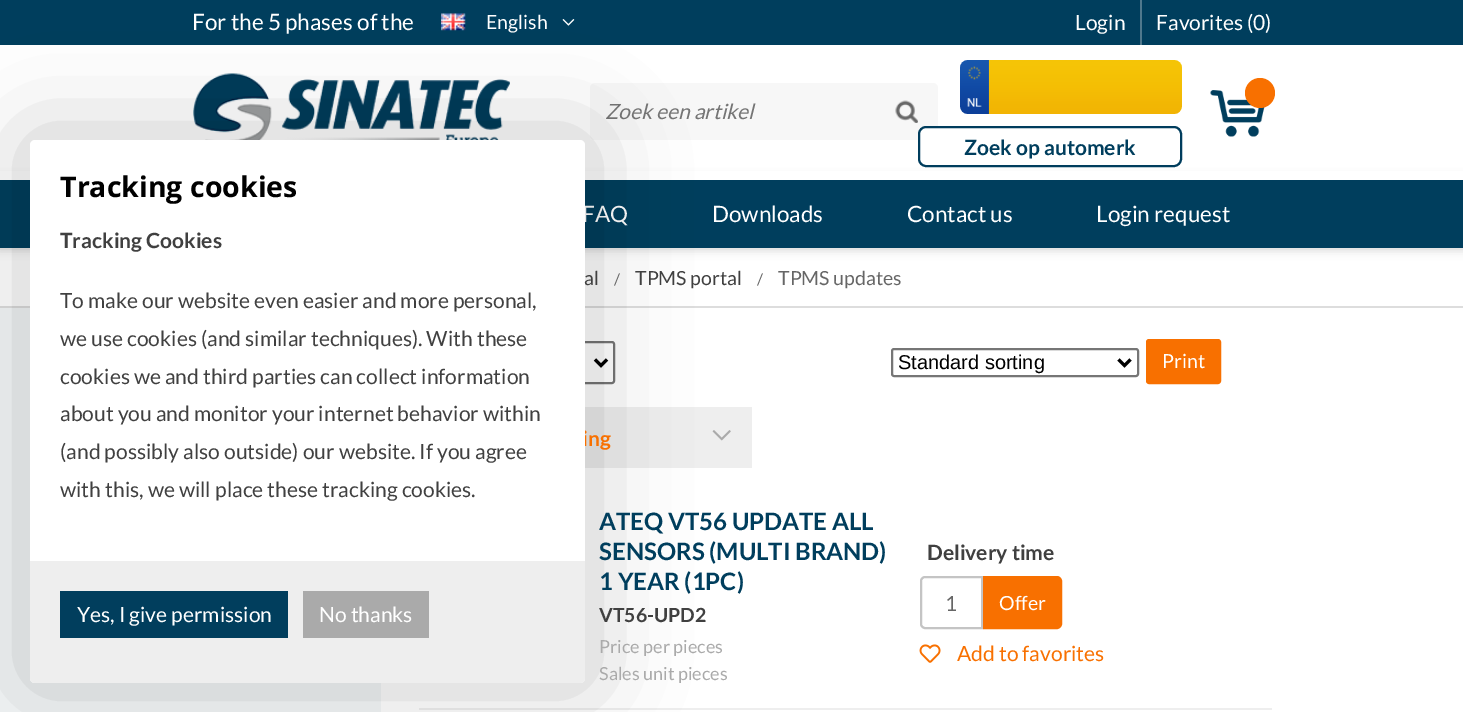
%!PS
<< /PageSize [1463 712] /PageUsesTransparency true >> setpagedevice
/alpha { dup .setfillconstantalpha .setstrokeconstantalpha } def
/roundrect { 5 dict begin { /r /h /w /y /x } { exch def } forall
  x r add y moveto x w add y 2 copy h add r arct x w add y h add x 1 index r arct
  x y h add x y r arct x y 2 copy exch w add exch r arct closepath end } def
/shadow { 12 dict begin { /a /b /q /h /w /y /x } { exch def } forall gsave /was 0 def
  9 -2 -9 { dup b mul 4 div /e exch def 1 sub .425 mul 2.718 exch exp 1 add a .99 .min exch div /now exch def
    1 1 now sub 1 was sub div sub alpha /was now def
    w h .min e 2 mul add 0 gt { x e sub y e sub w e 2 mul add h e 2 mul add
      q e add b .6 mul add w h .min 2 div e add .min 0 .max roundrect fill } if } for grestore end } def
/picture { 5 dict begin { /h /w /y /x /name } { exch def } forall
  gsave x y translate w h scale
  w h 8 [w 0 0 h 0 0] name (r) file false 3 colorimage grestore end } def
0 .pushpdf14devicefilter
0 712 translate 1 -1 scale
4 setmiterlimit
1 setgray
0 0 1463 712 rectfill
0 0.243 0.365 setrgbcolor
0 0 1463 45 rectfill
/Lato-Regular [22.5 0 0 -22.5 0 0] selectfont
1 setgray
192 30 moveto (For the 5 phases of the) show
(img1.rgb) 441 13 25 18 picture
/Lato-Regular [19.5 0 0 -19.5 0 0] selectfont
486 29 moveto (English) show
(img2.rgb) 562 19 13 7 picture
/Lato-Regular [21 0 0 -21 0 0] selectfont
1075 30 moveto (Login) show
0.31 0.471 0.553 setrgbcolor
1140 0 2 45 rectfill
1 setgray
1156 30 moveto (Favorites \(0\)) show
0 setgray
-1 179 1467 70 0 5 0.2 shadow
1 setgray
0 171 1463 9 rectfill
(img3.rgb) 193 73 317 67 picture
0.969 setgray
590 83 348 57 5 roundrect fill
/Lato-Italic [21 0 0 -21 0 0] selectfont
0.459 setgray
605 119 moveto (Zoek een artikel) show
(img4.rgb) 895 100 23 23 picture
(img5.rgb) 960 60 222 54 picture
(img6.rgb) 1210 90 55 47 picture
0.973 0.439 0 setrgbcolor
newpath 1260 93 15 0 360 arc closepath fill
1 setgray
919 127 262 39 7 roundrect gsave fill grestore
0 0.239 0.365 setrgbcolor
2 setlinewidth
stroke
/Lato-Bold [21 0 0 -21 0 0] selectfont
0 0.243 0.365 setrgbcolor
964 155 moveto (Zoek op automerk) show
0 180 1463 68 rectfill
/Lato-Regular [22.5 0 0 -22.5 0 0] selectfont
1 setgray
582 222 moveto (FAQ) show
712 222 moveto (Downloads) show
907 222 moveto (Contact us) show
1096 222 moveto (Login request) show
0.867 setgray
0 306 1463 2 rectfill
0.953 0.965 0.969 setrgbcolor
0 308 381 404 rectfill
0.463 setgray
496 342 118 41 2 roundrect stroke
0 setgray
3 setlinewidth
newpath 595 359.5 moveto 601 365.5 lineto 607 359.5 lineto stroke
0.933 setgray
585 407 167 61 rectfill
(img7.rgb) 712 430 19 11 picture
419 708 853 2 rectfill
0 setgray
23 132 570 558 12 45 0.2 shadow
/Lato-Bold [21 0 0 -21 0 0] selectfont
0.973 0.439 0 setrgbcolor
582 446 moveto (ing) show
1 setgray
30 140 555 543 5 roundrect fill
/OpenSans-Bold [28.5 0 0 -28.5 0 0] selectfont
0 setgray
60 197 moveto (Tracking cookies) show
/Lato-Bold [21 0 0 -21 0 0] selectfont
0.251 setgray
60 248 moveto (Tracking Cookies) show
/Lato-Regular [21 0 0 -21 0 0] selectfont
60 308 moveto (To make our website even easier and more personal,) show
60 346 moveto (we use cookies \(and similar techniques\). With these) show
60 384 moveto (cookies we and third parties can collect information) show
60 421 moveto (about you and monitor your internet behavior within) show
60 459 moveto (\(and possibly also outside\) our website. If you agree) show
60 497 moveto (with this, we will place these tracking cookies.) show
0.933 setgray
newpath 30 561 moveto 585 561 lineto 585 678 lineto 585 681 583 683 580 683 curveto 35 683 lineto 32 683 30 681 30 678 curveto closepath fill
0.004 0.243 0.365 setrgbcolor
60 591 228 47 rectfill
1 setgray
77 622 moveto (Yes, I give permission) show
0.667 setgray
303 591 126 47 rectfill
1 setgray
319 622 moveto (No thanks) show
/Lato-Regular [19.5 0 0 -19.5 0 0] selectfont
0.251 setgray
584 285 moveto (al) show
/Lato-Regular [16 0 0 -16 0 0] selectfont
0.4 setgray
614 285 moveto (/) show
/Lato-Regular [19.5 0 0 -19.5 0 0] selectfont
0.251 setgray
635 285 moveto (TPMS portal) show
/Lato-Regular [16 0 0 -16 0 0] selectfont
0.4 setgray
757 285 moveto (/) show
/Lato-Regular [19.5 0 0 -19.5 0 0] selectfont
778 285 moveto (TPMS updates) show
0.463 setgray
2 setlinewidth
892 349 246 27 2 roundrect stroke
0 setgray
3 setlinewidth
newpath 1118.5 359.5 moveto 1124.5 365.5 lineto 1130.5 359.5 lineto stroke
/LiberationSans-Regular [20 0 0 -20 0 0] selectfont
898 369 moveto (Standard sorting) show
0.973 0.439 0 setrgbcolor
1147 340 73 43 2 roundrect gsave fill grestore
2 setlinewidth
stroke
/Lato-Regular [19.5 0 0 -19.5 0 0] selectfont
1 setgray
1162 368 moveto (Print) show
/Lato-Bold [24 0 0 -24 0 0] selectfont
0 0.243 0.365 setrgbcolor
599 530 moveto (ATEQ VT56 UPDATE ALL) show
599 560 moveto (SENSORS \(MULTI BRAND\)) show
599 590 moveto (1 YEAR \(1PC\)) show
/Lato-Bold [19.5 0 0 -19.5 0 0] selectfont
0.251 setgray
599 622 moveto (VT56-UPD2) show
/Lato-Regular [18 0 0 -18 0 0] selectfont
0.667 setgray
599 653 moveto (Price per pieces) show
599 680 moveto (Sales unit pieces) show
/Lato-Bold [21 0 0 -21 0 0] selectfont
0.251 setgray
927 560 moveto (Delivery time) show
0.769 setgray
newpath 925 577 moveto 982 577 lineto 982 628 lineto 925 628 lineto 923 628 921 626 921 624 curveto 921 581 lineto 921 579 923 577 925 577 curveto closepath stroke
/Lato-Regular [21 0 0 -21 0 0] selectfont
0.4 setgray
945 611 moveto (1) show
0.973 0.439 0 setrgbcolor
newpath 984 577 moveto 1057 577 lineto 1059 577 1061 579 1061 581 curveto 1061 624 lineto 1061 626 1059 628 1057 628 curveto 984 628 lineto closepath gsave fill grestore
stroke
/Lato-Regular [19.5 0 0 -19.5 0 0] selectfont
1 setgray
999 610 moveto (Offer) show
(img8.rgb) 919 644 22 19 picture
/Lato-Regular [21 0 0 -21 0 0] selectfont
0.973 0.439 0 setrgbcolor
957 661 moveto (Add to favorites) show
.poppdf14devicefilter showpage
